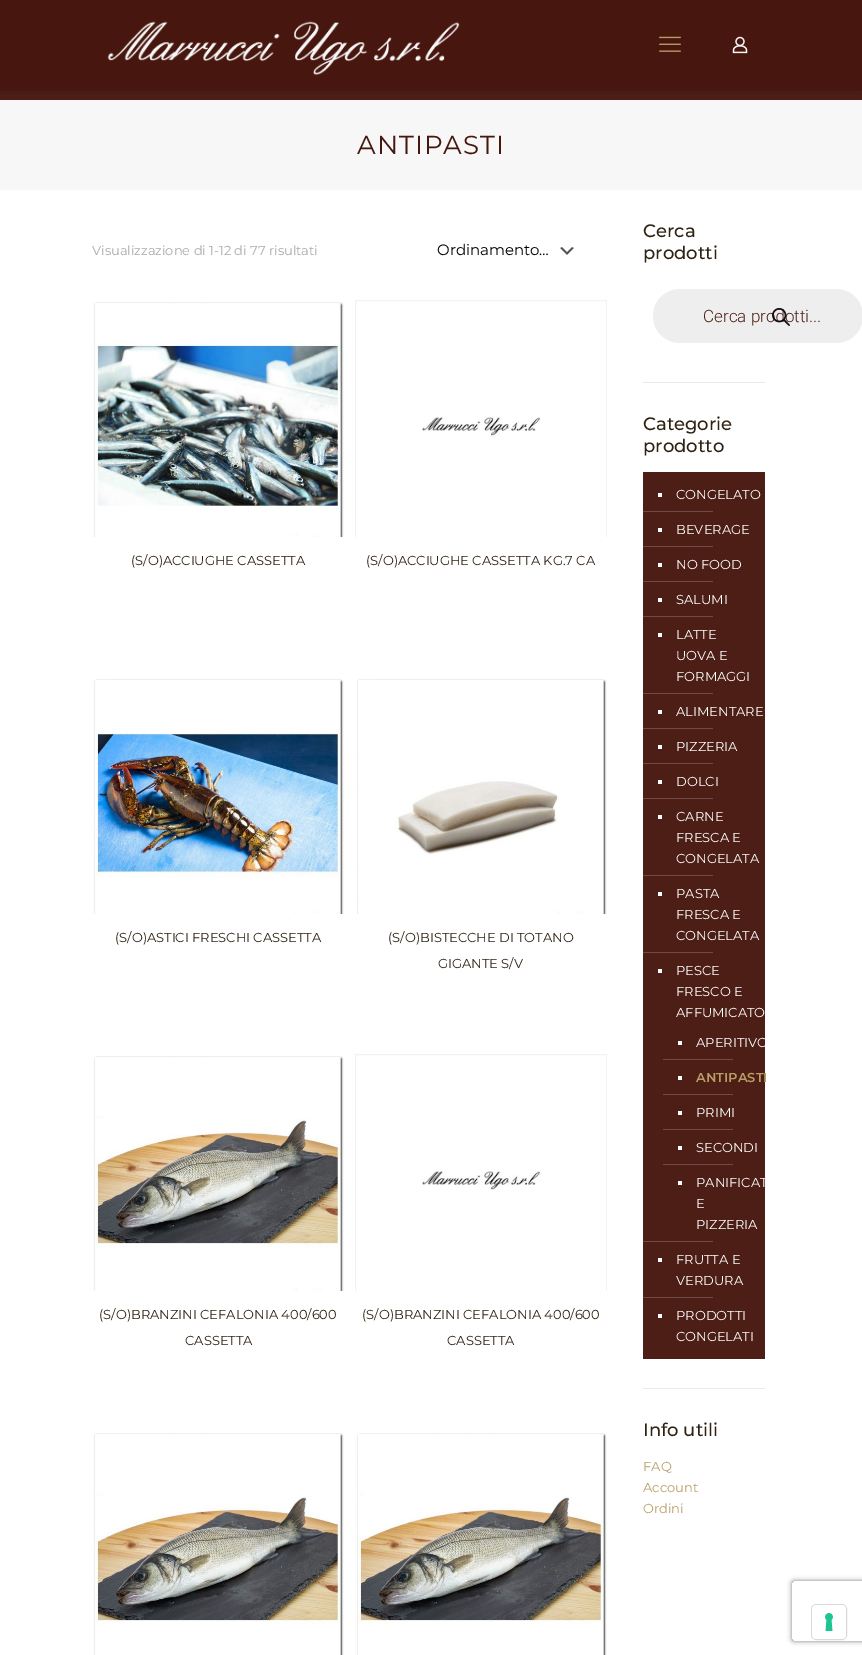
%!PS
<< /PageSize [862 1655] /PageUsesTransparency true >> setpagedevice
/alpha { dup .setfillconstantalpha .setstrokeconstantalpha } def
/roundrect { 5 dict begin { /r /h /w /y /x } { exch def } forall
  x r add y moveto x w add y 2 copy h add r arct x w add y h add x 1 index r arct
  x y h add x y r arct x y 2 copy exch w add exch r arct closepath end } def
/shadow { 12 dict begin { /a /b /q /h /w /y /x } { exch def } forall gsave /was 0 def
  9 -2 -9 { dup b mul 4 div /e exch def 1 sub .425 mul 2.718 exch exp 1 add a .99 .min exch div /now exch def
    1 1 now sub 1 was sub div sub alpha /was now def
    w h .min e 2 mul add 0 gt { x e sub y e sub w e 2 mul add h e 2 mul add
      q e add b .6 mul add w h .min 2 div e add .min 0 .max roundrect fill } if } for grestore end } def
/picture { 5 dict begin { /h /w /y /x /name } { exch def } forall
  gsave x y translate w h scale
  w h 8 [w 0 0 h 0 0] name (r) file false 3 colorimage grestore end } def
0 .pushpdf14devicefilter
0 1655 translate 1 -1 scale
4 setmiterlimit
1 setgray
0 0 862 1655 rectfill
0.298 0.118 0.086 setrgbcolor
0 91 862 9 rectfill
0.969 setgray
0 100 862 90 rectfill
0.008 0.004 0.004 setrgbcolor
0 2 862 91 0 2.5 0.1 shadow
0.278 0.09 0.059 setrgbcolor
0 0 862 91 rectfill
(img1.rgb) 107 21 353 55 picture
(img2.rgb) 659 36 22 16 picture
(img3.rgb) 732 36 16 18 picture
/Montserrat-Regular [26 0 0 -26 0 0] selectfont
357 154 moveto 1 0 (ANTIPASTI) ashow
/Montserrat-Regular [13 0 0 -13 0 0] selectfont
0.659 setgray
92 255 moveto (Visualizzazione di 1-12 di 77 risultati) show
(img4.rgb) 560 247 14 8 picture
/Montserrat-Regular [15 0 0 -15 0 0] selectfont
0 setgray
437 255 moveto (Ordinamento…) show
(img5.rgb) 92 302 252 235 picture
/Montserrat-Regular [13 0 0 -13 0 0] selectfont
0.184 0.133 0.071 setrgbcolor
131 565 moveto (\(S/O\)ACCIUGHE CASSETTA) show
gsave
355 300 252 237 rectclip
0.949 setgray
355.5 300.5 251 251 rectstroke
grestore
(img6.rgb) 422 417 119 20 picture
366 565 moveto (\(S/O\)ACCIUGHE CASSETTA KG.7 CA) show
(img7.rgb) 92 679 252 235 picture
115 942 moveto (\(S/O\)ASTICI FRESCHI CASSETTA) show
(img8.rgb) 357 679 250 235 picture
388 942 moveto (\(S/O\)BISTECCHE DI TOTANO) show
438 968 moveto (GIGANTE S/V) show
(img9.rgb) 92 1056 252 235 picture
99 1319 moveto (\(S/O\)BRANZINI CEFALONIA 400/600) show
185 1345 moveto (CASSETTA) show
gsave
355 1054 252 237 rectclip
0.949 setgray
355.5 1054.5 251 251 rectstroke
grestore
(img6.rgb) 422 1171 119 20 picture
362 1319 moveto (\(S/O\)BRANZINI CEFALONIA 400/600) show
447 1345 moveto (CASSETTA) show
(img10.rgb) 92 1433 252 222 picture
(img11.rgb) 355 1433 252 222 picture
/Montserrat-Medium [18 0 0 -18 0 0] selectfont
643 237 moveto (Cerca) show
643 259 moveto (prodotti) show
0.933 setgray
653 289 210 54 27 roundrect fill
/Roboto-Light [17 0 0 -17 0 0] selectfont
0.298 0.118 0.086 setrgbcolor
703 322 moveto (Cerca prodotti...) show
(img12.rgb) 772 308 18 18 picture
0.922 setgray
643 382 122 1 rectfill
/Montserrat-Medium [18 0 0 -18 0 0] selectfont
0.184 0.133 0.071 setrgbcolor
643 430 moveto (Categorie) show
643 452 moveto (prodotto) show
0.298 0.118 0.086 setrgbcolor
643 472 122 887 rectfill
1 setgray
658 493 4 4 rectfill
/Montserrat-Regular [13 0 0 -13 0 0] selectfont
676 499 moveto (CONGELATO) show
0.439 0.294 0.271 setrgbcolor
643 511 70 1 rectfill
1 setgray
658 528 4 4 rectfill
676 534 moveto (BEVERAGE) show
0.439 0.294 0.271 setrgbcolor
643 546 70 1 rectfill
1 setgray
658 563 4 4 rectfill
676 569 moveto (NO FOOD) show
0.439 0.294 0.271 setrgbcolor
643 581 70 1 rectfill
1 setgray
658 598 4 4 rectfill
676 604 moveto (SALUMI) show
0.439 0.294 0.271 setrgbcolor
643 616 70 1 rectfill
1 setgray
658 633 4 4 rectfill
676 639 moveto (LATTE) show
676 660 moveto (UOVA E) show
676 681 moveto (FORMAGGI) show
0.439 0.294 0.271 setrgbcolor
643 693 70 1 rectfill
1 setgray
658 710 4 4 rectfill
676 716 moveto (ALIMENTARE) show
0.439 0.294 0.271 setrgbcolor
643 728 70 1 rectfill
1 setgray
658 745 4 4 rectfill
676 751 moveto (PIZZERIA) show
0.439 0.294 0.271 setrgbcolor
643 763 70 1 rectfill
1 setgray
658 780 4 4 rectfill
676 786 moveto (DOLCI) show
0.439 0.294 0.271 setrgbcolor
643 798 70 1 rectfill
1 setgray
658 815 4 4 rectfill
676 821 moveto (CARNE) show
676 842 moveto (FRESCA E) show
676 863 moveto (CONGELATA) show
0.439 0.294 0.271 setrgbcolor
643 875 70 1 rectfill
1 setgray
658 892 4 4 rectfill
676 898 moveto (PASTA) show
676 919 moveto (FRESCA E) show
676 940 moveto (CONGELATA) show
0.439 0.294 0.271 setrgbcolor
643 952 70 1 rectfill
1 setgray
658 969 4 4 rectfill
676 975 moveto (PESCE) show
676 996 moveto (FRESCO E) show
676 1017 moveto (AFFUMICATO) show
678 1041 4 4 rectfill
696 1047 moveto (APERITIVO) show
0.439 0.294 0.271 setrgbcolor
663 1059 70 1 rectfill
1 setgray
678 1076 4 4 rectfill
/Montserrat-SemiBold [13 0 0 -13 0 0] selectfont
0.725 0.616 0.4 setrgbcolor
696 1082 moveto (ANTIPASTI) show
0.439 0.294 0.271 setrgbcolor
663 1094 70 1 rectfill
1 setgray
678 1111 4 4 rectfill
/Montserrat-Regular [13 0 0 -13 0 0] selectfont
696 1117 moveto (PRIMI) show
0.439 0.294 0.271 setrgbcolor
663 1129 70 1 rectfill
1 setgray
678 1146 4 4 rectfill
696 1152 moveto (SECONDI) show
0.439 0.294 0.271 setrgbcolor
663 1164 70 1 rectfill
1 setgray
678 1181 4 4 rectfill
696 1187 moveto (PANIFICAT) show
696 1208 moveto (E) show
696 1229 moveto (PIZZERIA) show
0.439 0.294 0.271 setrgbcolor
643 1241 70 1 rectfill
1 setgray
658 1258 4 4 rectfill
676 1264 moveto (FRUTTA E) show
676 1285 moveto (VERDURA) show
0.439 0.294 0.271 setrgbcolor
643 1297 70 1 rectfill
1 setgray
658 1314 4 4 rectfill
676 1320 moveto (PRODOTTI) show
676 1341 moveto (CONGELATI) show
0.922 setgray
643 1388 122 1 rectfill
/Montserrat-Medium [18 0 0 -18 0 0] selectfont
0.184 0.133 0.071 setrgbcolor
643 1436 moveto (Info utili) show
/Montserrat-Regular [13 0 0 -13 0 0] selectfont
0.725 0.616 0.4 setrgbcolor
643 1471 moveto (FAQ) show
643 1492 moveto (Account) show
643 1513 moveto (Ordini) show
gsave
newpath 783 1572 moveto 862 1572 lineto 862 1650 lineto 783 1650 lineto closepath 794 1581 moveto 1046 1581 lineto 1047 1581 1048 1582 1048 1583 curveto 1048 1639 lineto 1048 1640 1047 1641 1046 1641 curveto 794 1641 lineto 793 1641 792 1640 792 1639 curveto 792 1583 lineto 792 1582 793 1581 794 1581 curveto closepath eoclip newpath
0.502 setgray
792 1581 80 60 2 2.5 1 shadow
grestore
0.851 setgray
811.5 1604.5 35 35 4.5 roundrect stroke
1 setgray
812 1605 34 34 4 roundrect fill
(img13.rgb) 825 1613 8 18 picture
.poppdf14devicefilter showpage
